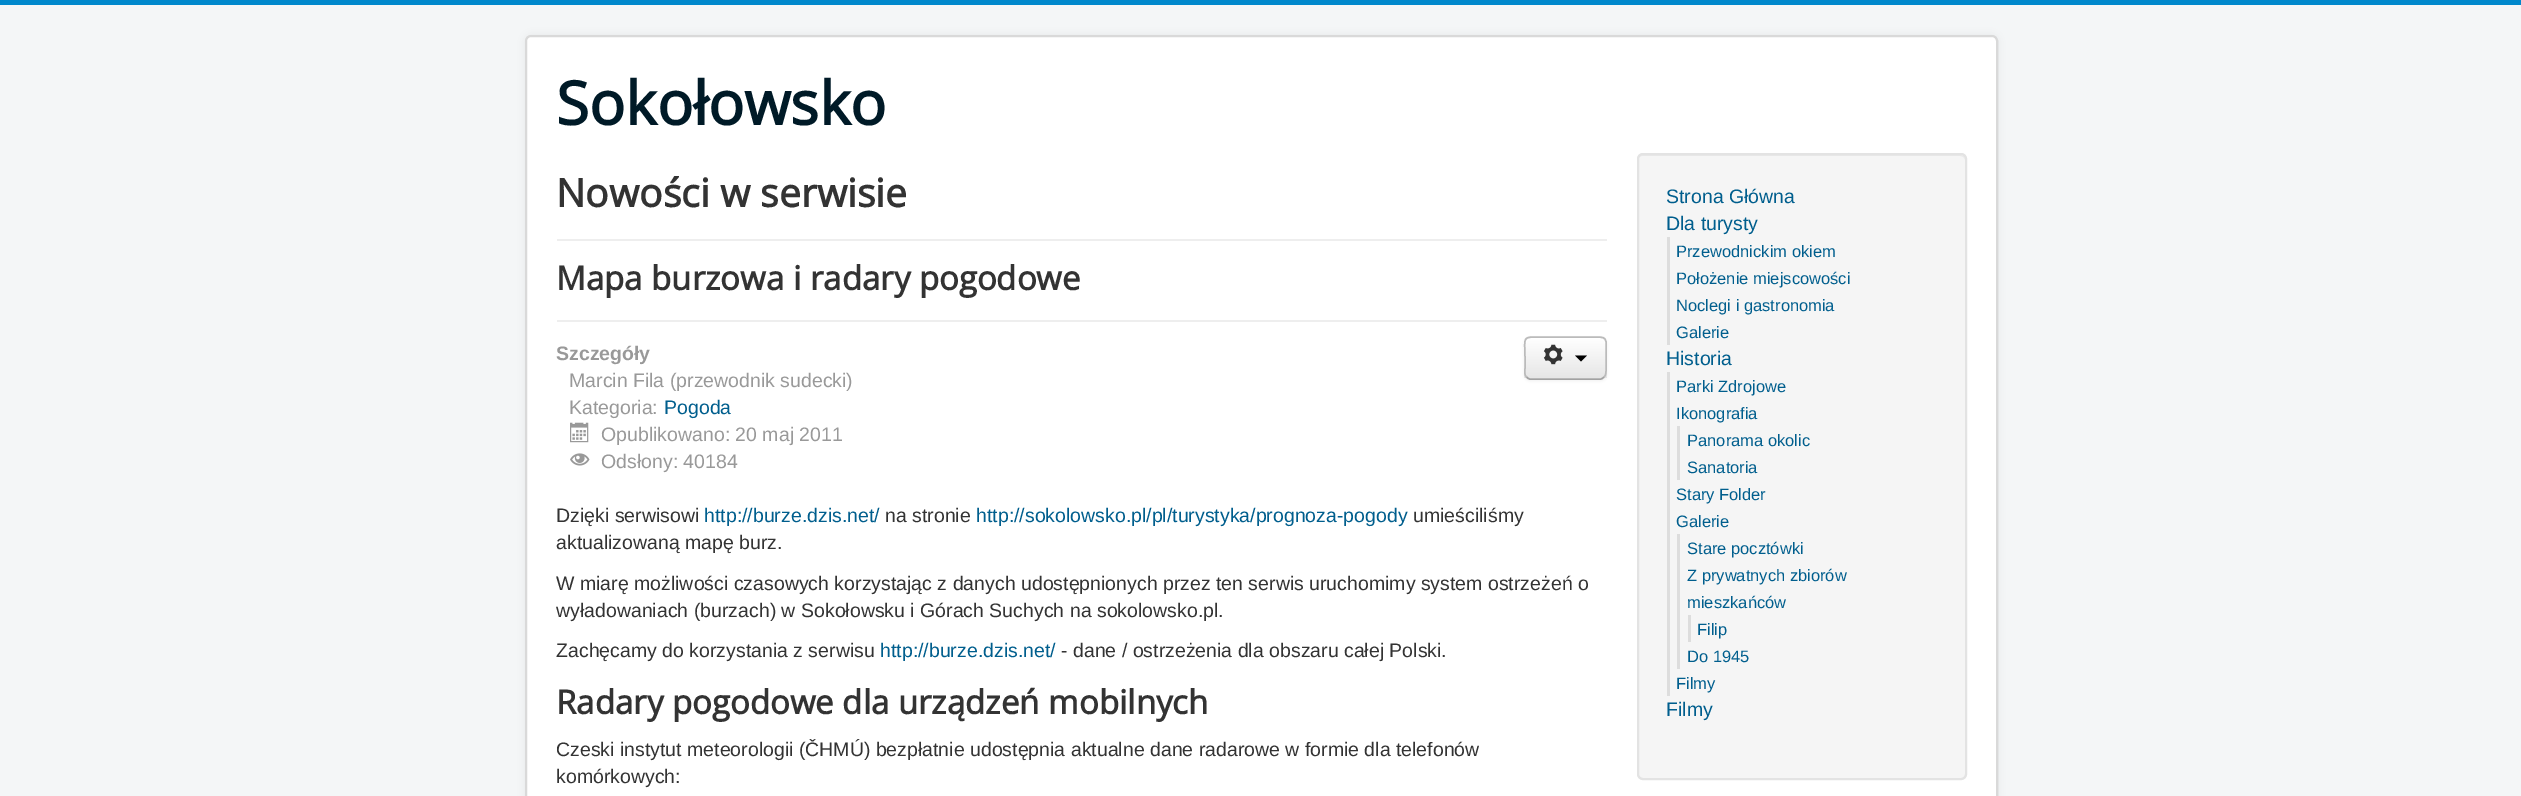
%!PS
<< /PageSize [2521 796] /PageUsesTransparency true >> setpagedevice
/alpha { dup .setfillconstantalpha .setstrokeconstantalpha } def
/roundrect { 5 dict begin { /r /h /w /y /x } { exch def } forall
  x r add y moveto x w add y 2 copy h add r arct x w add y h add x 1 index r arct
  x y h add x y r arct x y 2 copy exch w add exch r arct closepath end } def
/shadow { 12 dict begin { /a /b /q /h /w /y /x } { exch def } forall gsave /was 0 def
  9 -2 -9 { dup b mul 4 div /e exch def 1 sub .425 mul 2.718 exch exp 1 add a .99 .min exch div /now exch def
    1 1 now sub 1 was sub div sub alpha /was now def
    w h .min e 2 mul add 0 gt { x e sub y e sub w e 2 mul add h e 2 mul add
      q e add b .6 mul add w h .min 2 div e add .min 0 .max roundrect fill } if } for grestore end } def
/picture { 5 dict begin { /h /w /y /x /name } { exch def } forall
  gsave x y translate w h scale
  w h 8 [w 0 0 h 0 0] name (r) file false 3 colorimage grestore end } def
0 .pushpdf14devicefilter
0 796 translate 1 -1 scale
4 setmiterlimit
0.957 0.965 0.969 setrgbcolor
0 0 2521 796 rectfill
0 0.533 0.8 setrgbcolor
0 0 2521 5 rectfill
0 setgray
525 35 1473 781 6 4.5 0.05 shadow
1 setgray
525 35 1473 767 6 roundrect fill
0.15 alpha
0 setgray
2 setlinewidth
526 36 1471 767 5 roundrect stroke
/OpenSans-Bold [60 0 0 -60 0 0] selectfont
1 alpha
0 0.102 0.153 setrgbcolor
556 125 moveto (Sokołowsko) show
0.933 setgray
557 239 1050 2 rectfill
/OpenSans-Bold [39 0 0 -39 0 0] selectfont
0.2 setgray
556 207 moveto (Nowości w serwisie) show
0.933 setgray
557 320 1050 2 rectfill
/OpenSans-Bold [33 0 0 -33 0 0] selectfont
0.2 setgray
556 290 moveto (Mapa burzowa i radary pogodowe) show
/LiberationSans-Bold [19.5 0 0 -19.5 0 0] selectfont
0.6 setgray
556 360 moveto (Szczegóły) show
/LiberationSans-Regular [19.5 0 0 -19.5 0 0] selectfont
569 387 moveto (Marcin Fila \(przewodnik sudecki\)) show
569 414 moveto (Kategoria:) show
0 0.369 0.553 setrgbcolor
664 414 moveto (Pogoda) show
(img1.rgb) 570 422 19 21 picture
0.6 setgray
601 441 moveto (Opublikowano: 20 maj 2011) show
(img2.rgb) 570 453 20 13 picture
601 468 moveto (Odsłony: 40184) show
0 setgray
1524 338 83 43 6 1.5 0.05 shadow
0.961 setgray
1524 336 83 44 6 roundrect fill
gsave
1524 336 83 44 6 roundrect clip newpath
gsave newpath 1524 338 moveto 1607 338 lineto 1607 378 lineto 1524 378 lineto closepath clip newpath
<< /ShadingType 2 /ColorSpace /DeviceRGB /Coords [1565 338 1565 378] /Extend [true true] /Function << /FunctionType 2 /Domain [0 1] /C0 [1 1 1] /C1 [0.902 0.902 0.902] /N 1 >> >> shfill grestore
grestore
1 setgray
newpath 1530 339 moveto 1600 339 lineto 1603 339 1605 341 1605 344 curveto 1605 335 1594 338 1588 338 curveto 1542 338 lineto 1537 338 1526 335 1526 344 curveto 1526 341 1528 339 1530 339 curveto closepath fill
0.635 setgray
1.5 setlinewidth
newpath 1604 377 moveto 1603 378 1602 379 1600.5 379 curveto 1530 379 lineto 1528.5 379 1527.5 378 1526.5 377 curveto stroke
0.733 setgray
newpath 1526.5 377 moveto 1524 375 1525 371 1525 368 curveto 1525 358 lineto 1525 336 1521 337 1542 337 curveto 1589 337 lineto 1609.5 337 1606 336 1606 358 curveto 1606 368 lineto 1606 371 1606.5 375 1604 377 curveto stroke
(img3.rgb) 1543 344 20 21 picture
0 setgray
newpath 1575 355.5 moveto 1587 355.5 lineto 1581 361.5 lineto closepath fill
0.2 setgray
556 522 moveto (Dzięki serwisowi) show
0 0.369 0.553 setrgbcolor
704 522 moveto (http://burze.dzis.net/) show
0.2 setgray
885 522 moveto (na stronie) show
0 0.369 0.553 setrgbcolor
976 522 moveto (http://sokolowsko.pl/pl/turystyka/prognoza-pogody) show
0.2 setgray
1413 522 moveto (umieściliśmy) show
556 549 moveto (aktualizowaną mapę burz.) show
556 590 moveto (W miarę możliwości czasowych korzystając z danych udostępnionych przez ten serwis uruchomimy system ostrzeżeń o) show
556 617 moveto (wyładowaniach \(burzach\) w Sokołowsku i Górach Suchych na sokolowsko.pl.) show
556 657 moveto (Zachęcamy do korzystania z serwisu) show
0 0.369 0.553 setrgbcolor
880 657 moveto (http://burze.dzis.net/) show
0.2 setgray
1061 657 moveto (- dane / ostrzeżenia dla obszaru całej Polski.) show
/OpenSans-Bold [33 0 0 -33 0 0] selectfont
556 714 moveto (Radary pogodowe dla urządzeń mobilnych) show
/LiberationSans-Regular [19.5 0 0 -19.5 0 0] selectfont
556 756 moveto (Czeski instytut meteorologii \(ČHMÚ\) bezpłatnie udostępnia aktualne dane radarowe w formie dla telefonów) show
556 783 moveto (komórkowych:) show
0.961 setgray
1637 153 330 627 6 roundrect fill
0.914 setgray
newpath 1642 156 moveto 1960 156 lineto 1963 156 1965 158 1965 160 curveto 1965 157 1963 155 1960 155 curveto 1643 155 lineto 1640 155 1638 157 1638 160 curveto 1638 158 1640 156 1642 156 curveto closepath fill
0.89 setgray
2 setlinewidth
1638 154 328 625 5 roundrect stroke
0 0.369 0.553 setrgbcolor
1666 203 moveto (Strona Główna) show
1666 230 moveto (Dla turysty) show
0.867 setgray
1667 237 3 108 rectfill
/LiberationSans-Regular [16.5 0 0 -16.5 0 0] selectfont
0 0.369 0.553 setrgbcolor
1676 257 moveto (Przewodnickim okiem) show
1676 284 moveto (Położenie miejscowości) show
1676 311 moveto (Noclegi i gastronomia) show
1676 338 moveto (Galerie) show
/LiberationSans-Regular [19.5 0 0 -19.5 0 0] selectfont
1666 365 moveto (Historia) show
0.867 setgray
1667 372 3 324 rectfill
/LiberationSans-Regular [16.5 0 0 -16.5 0 0] selectfont
0 0.369 0.553 setrgbcolor
1676 392 moveto (Parki Zdrojowe) show
1676 419 moveto (Ikonografia) show
0.867 setgray
1677 426 3 54 rectfill
0 0.369 0.553 setrgbcolor
1687 446 moveto (Panorama okolic) show
1687 473 moveto (Sanatoria) show
1676 500 moveto (Stary Folder) show
1676 527 moveto (Galerie) show
0.867 setgray
1677 534 3 135 rectfill
0 0.369 0.553 setrgbcolor
1687 554 moveto (Stare pocztówki) show
1687 581 moveto (Z prywatnych zbiorów) show
1687 608 moveto (mieszkańców) show
0.867 setgray
1688 615 3 27 rectfill
0 0.369 0.553 setrgbcolor
1697 635 moveto (Filip) show
1687 662 moveto (Do 1945) show
1676 689 moveto (Filmy) show
/LiberationSans-Regular [19.5 0 0 -19.5 0 0] selectfont
1666 716 moveto (Filmy) show
.poppdf14devicefilter showpage
